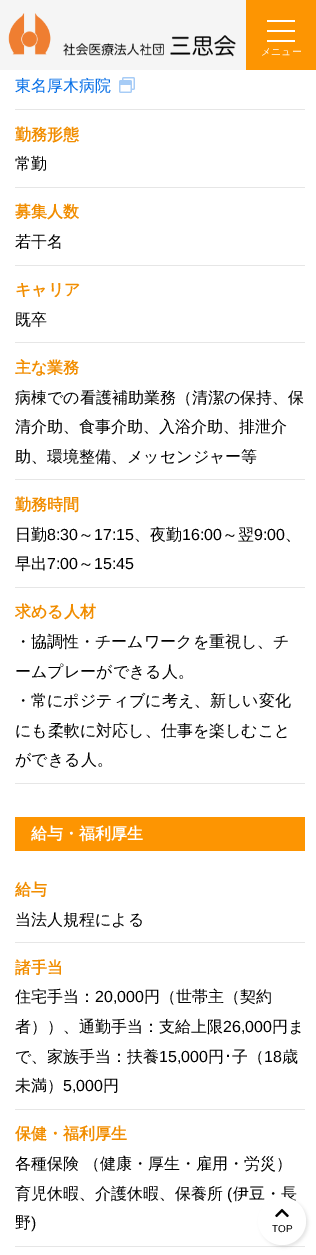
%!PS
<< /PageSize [316 1255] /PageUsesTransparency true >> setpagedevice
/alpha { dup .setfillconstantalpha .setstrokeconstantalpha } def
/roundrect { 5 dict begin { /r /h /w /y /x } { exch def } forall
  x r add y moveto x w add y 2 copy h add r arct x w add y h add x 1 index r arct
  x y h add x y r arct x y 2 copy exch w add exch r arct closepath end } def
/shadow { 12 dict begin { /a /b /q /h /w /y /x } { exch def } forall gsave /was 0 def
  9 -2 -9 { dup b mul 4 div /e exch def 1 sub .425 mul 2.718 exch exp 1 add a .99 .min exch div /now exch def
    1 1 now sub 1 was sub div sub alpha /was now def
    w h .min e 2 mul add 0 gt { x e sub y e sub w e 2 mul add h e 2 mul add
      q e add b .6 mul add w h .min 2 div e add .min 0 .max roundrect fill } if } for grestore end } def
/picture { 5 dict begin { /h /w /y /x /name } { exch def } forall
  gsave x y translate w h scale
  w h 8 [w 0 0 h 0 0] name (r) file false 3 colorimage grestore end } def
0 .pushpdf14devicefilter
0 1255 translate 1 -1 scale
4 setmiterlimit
1 setgray
0 0 316 1255 rectfill
0.961 setgray
0 0 246 70 rectfill
(img1.rgb) 8 13 228 44 picture
0.992 0.584 0.008 setrgbcolor
246 0 70 70 rectfill
1 setgray
267 20 28 2 rectfill
267 40 28 2 rectfill
267 30 28 2 rectfill
/WenQuanYiZenHei-Medium [10 0 0 -10 0 0] selectfont
261 55 moveto (メニュー) show
0.902 setgray
15 109 290 1 rectfill
/WenQuanYiZenHei-Medium [16 0 0 -16 0 0] selectfont
0.012 0.427 0.902 setrgbcolor
15 91 moveto (東名厚木病院) show
(img2.rgb) 119 77 16 16 picture
/WenQuanYiZenHei-Bold [16 0 0 -16 0 0] selectfont
0.945 0.553 0 setrgbcolor
15 140 moveto (勤務形態) show
0.902 setgray
15 187 290 1 rectfill
/WenQuanYiZenHei-Medium [16 0 0 -16 0 0] selectfont
0 setgray
15 169 moveto (常勤) show
/WenQuanYiZenHei-Bold [16 0 0 -16 0 0] selectfont
0.945 0.553 0 setrgbcolor
15 217 moveto (募集人数) show
0.902 setgray
15 265 290 1 rectfill
/WenQuanYiZenHei-Medium [16 0 0 -16 0 0] selectfont
0 setgray
15 247 moveto (若干名) show
/WenQuanYiZenHei-Bold [16 0 0 -16 0 0] selectfont
0.945 0.553 0 setrgbcolor
15 295 moveto (キャリア) show
0.902 setgray
15 342 290 1 rectfill
/WenQuanYiZenHei-Medium [16 0 0 -16 0 0] selectfont
0 setgray
15 325 moveto (既卒) show
/WenQuanYiZenHei-Bold [16 0 0 -16 0 0] selectfont
0.945 0.553 0 setrgbcolor
15 373 moveto (主な業務) show
0.902 setgray
15 479 290 1 rectfill
/WenQuanYiZenHei-Medium [16 0 0 -16 0 0] selectfont
0 setgray
15 403 moveto (病棟での看護補助業務（清潔の保持、保) show
15 432 moveto (清介助、食事介助、入浴介助、排泄介) show
15 462 moveto (助、環境整備、メッセンジャー等) show
/WenQuanYiZenHei-Bold [16 0 0 -16 0 0] selectfont
0.945 0.553 0 setrgbcolor
15 510 moveto (勤務時間) show
0.902 setgray
15 587 290 1 rectfill
/WenQuanYiZenHei-Medium [16 0 0 -16 0 0] selectfont
0 setgray
15 540 moveto (日勤) show
/LiberationSans-Regular [16 0 0 -16 0 0] selectfont
47 540 moveto (8:30) show
/WenQuanYiZenHei-Medium [16 0 0 -16 0 0] selectfont
78 540 moveto (～) show
/LiberationSans-Regular [16 0 0 -16 0 0] selectfont
94 540 moveto (17:15) show
/WenQuanYiZenHei-Medium [16 0 0 -16 0 0] selectfont
134 540 moveto (、夜勤) show
/LiberationSans-Regular [16 0 0 -16 0 0] selectfont
182 540 moveto (16:00) show
/WenQuanYiZenHei-Medium [16 0 0 -16 0 0] selectfont
222 540 moveto (～翌) show
/LiberationSans-Regular [16 0 0 -16 0 0] selectfont
254 540 moveto (9:00) show
/WenQuanYiZenHei-Medium [16 0 0 -16 0 0] selectfont
285 540 moveto (、) show
15 569 moveto (早出) show
/LiberationSans-Regular [16 0 0 -16 0 0] selectfont
47 569 moveto (7:00) show
/WenQuanYiZenHei-Medium [16 0 0 -16 0 0] selectfont
78 569 moveto (～) show
/LiberationSans-Regular [16 0 0 -16 0 0] selectfont
94 569 moveto (15:45) show
/WenQuanYiZenHei-Bold [16 0 0 -16 0 0] selectfont
0.945 0.553 0 setrgbcolor
15 617 moveto (求める人材) show
0.902 setgray
15 783 290 1 rectfill
/WenQuanYiZenHei-Medium [16 0 0 -16 0 0] selectfont
0 setgray
15 647 moveto (・協調性・チームワークを重視し、チ) show
15 677 moveto (ームプレーができる人。) show
15 706 moveto (・常にポジティブに考え、新しい変化) show
15 736 moveto (にも柔軟に対応し、仕事を楽しむこと) show
15 765 moveto (ができる人。) show
0.992 0.584 0.008 setrgbcolor
15 817 290 34 rectfill
/WenQuanYiZenHei-Bold [16 0 0 -16 0 0] selectfont
1 setgray
31 839 moveto (給与・福利厚生) show
0.945 0.553 0 setrgbcolor
15 895 moveto (給与) show
0.902 setgray
15 942 290 1 rectfill
/WenQuanYiZenHei-Medium [16 0 0 -16 0 0] selectfont
0 setgray
15 925 moveto (当法人規程による) show
/WenQuanYiZenHei-Bold [16 0 0 -16 0 0] selectfont
0.945 0.553 0 setrgbcolor
15 973 moveto (諸手当) show
0.902 setgray
15 1109 290 1 rectfill
/WenQuanYiZenHei-Medium [16 0 0 -16 0 0] selectfont
0 setgray
15 1002 moveto (住宅手当：) show
/LiberationSans-Regular [16 0 0 -16 0 0] selectfont
95 1002 moveto (20,000) show
/WenQuanYiZenHei-Medium [16 0 0 -16 0 0] selectfont
144 1002 moveto (円（世帯主（契約) show
15 1032 moveto (者））、通勤手当：支給上限) show
/LiberationSans-Regular [16 0 0 -16 0 0] selectfont
223 1032 moveto (26,000) show
/WenQuanYiZenHei-Medium [16 0 0 -16 0 0] selectfont
272 1032 moveto (円ま) show
15 1062 moveto (で、家族手当：扶養) show
/LiberationSans-Regular [16 0 0 -16 0 0] selectfont
159 1062 moveto (15,000) show
/WenQuanYiZenHei-Medium [16 0 0 -16 0 0] selectfont
208 1062 moveto (円) show
/IPAPGothic-Regular [16 0 0 -16 0 0] selectfont
224 1062 moveto (･) show
/WenQuanYiZenHei-Medium [16 0 0 -16 0 0] selectfont
232 1062 moveto (子（) show
/LiberationSans-Regular [16 0 0 -16 0 0] selectfont
264 1062 moveto (18) show
/WenQuanYiZenHei-Medium [16 0 0 -16 0 0] selectfont
282 1062 moveto (歳) show
15 1091 moveto (未満）) show
/LiberationSans-Regular [16 0 0 -16 0 0] selectfont
63 1091 moveto (5,000) show
/WenQuanYiZenHei-Medium [16 0 0 -16 0 0] selectfont
103 1091 moveto (円) show
/WenQuanYiZenHei-Bold [16 0 0 -16 0 0] selectfont
0.945 0.553 0 setrgbcolor
15 1139 moveto (保健・福利厚生) show
0.902 setgray
15 1246 290 1 rectfill
/WenQuanYiZenHei-Medium [16 0 0 -16 0 0] selectfont
0 setgray
15 1169 moveto (各種保険 （健康・厚生・雇用・労災）) show
15 1199 moveto (育児休暇、介護休暇、保養所) show
/LiberationSans-Regular [16 0 0 -16 0 0] selectfont
227 1199 moveto (\() show
/WenQuanYiZenHei-Medium [16 0 0 -16 0 0] selectfont
233 1199 moveto (伊豆・長) show
15 1228 moveto (野) show
/LiberationSans-Regular [16 0 0 -16 0 0] selectfont
31 1228 moveto (\)) show
260 1199 48 48 24 1.5 0.1 shadow
1 setgray
newpath 282 1221 24 0 360 arc closepath fill
(img3.rgb) 275 1208 14 10 picture
/LiberationSans-Regular [10 0 0 -10 0 0] selectfont
0 setgray
272 1232 moveto (TOP) show
.poppdf14devicefilter showpage
